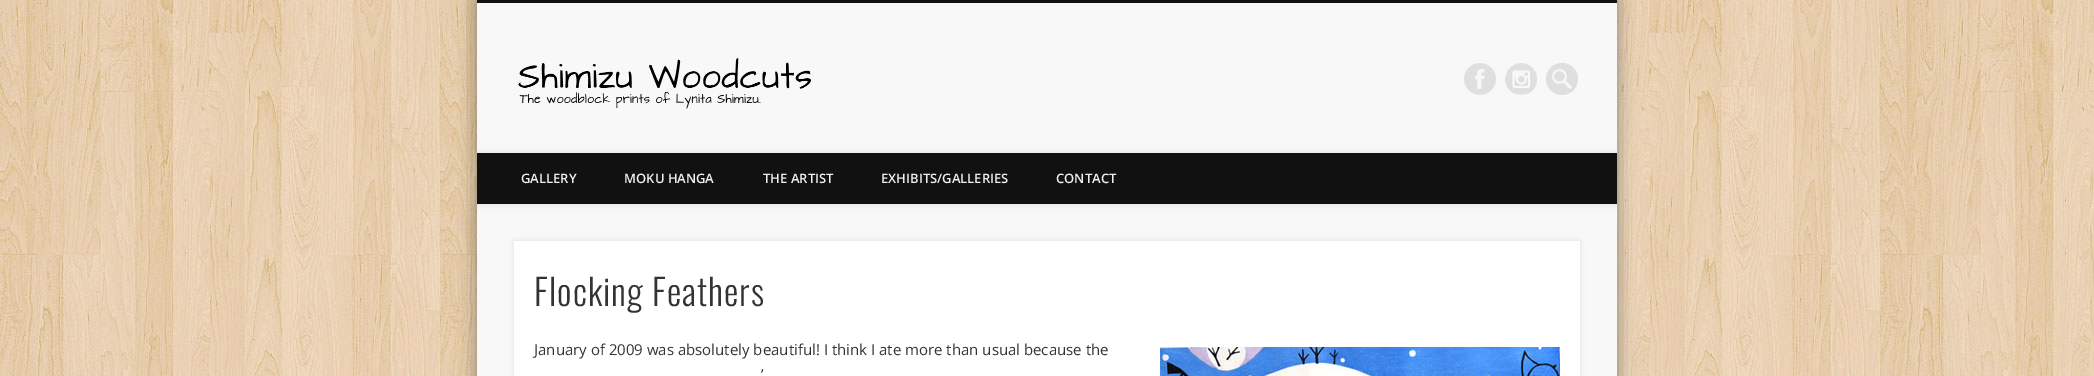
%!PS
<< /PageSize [2094 376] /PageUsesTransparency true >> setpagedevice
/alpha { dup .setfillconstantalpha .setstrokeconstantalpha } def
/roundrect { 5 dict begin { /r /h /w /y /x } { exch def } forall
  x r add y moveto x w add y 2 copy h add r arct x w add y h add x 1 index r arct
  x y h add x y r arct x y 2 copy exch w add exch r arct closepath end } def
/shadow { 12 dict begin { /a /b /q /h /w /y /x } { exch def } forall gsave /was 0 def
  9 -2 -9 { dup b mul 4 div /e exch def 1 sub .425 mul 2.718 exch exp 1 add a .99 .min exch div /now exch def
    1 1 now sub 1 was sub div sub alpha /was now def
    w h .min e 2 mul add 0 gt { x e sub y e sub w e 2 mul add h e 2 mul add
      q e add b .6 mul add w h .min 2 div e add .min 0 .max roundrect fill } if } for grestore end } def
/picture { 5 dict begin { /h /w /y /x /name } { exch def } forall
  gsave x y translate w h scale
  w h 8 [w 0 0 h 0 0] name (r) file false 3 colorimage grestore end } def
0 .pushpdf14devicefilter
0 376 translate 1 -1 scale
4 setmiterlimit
1 setgray
0 0 2094 376 rectfill
(img1.rgb) 0 0 2094 376 picture
0 setgray
477 0 1140 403 0 9 0.4 shadow
0.973 setgray
477 3 1140 373 rectfill
0.067 setgray
477 0 1140 3 rectfill
(img2.rgb) 518 58 293 51 picture
(img3.rgb) 1464 63 32 32 picture
(img4.rgb) 1505 63 32 32 picture
0.875 setgray
newpath 1562 79 16 0 360 arc closepath fill
(img5.rgb) 1552 69 20 20 picture
gsave
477 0 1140 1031 rectclip
0 setgray
477 153 1140 51 0 3.5 0.1 shadow
grestore
0.067 setgray
477 153 1140 51 rectfill
/OpenSans-SemiBold [13 0 0 -13 0 0] selectfont
0.941 setgray
521 183 moveto (GALLERY) show
624 183 moveto (MOKU HANGA) show
763 183 moveto (THE ARTIST) show
881 183 moveto (EXHIBITS/GALLERIES) show
1056 183 moveto (CONTACT) show
0 setgray
514 241 1066 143 0 2.5 0.1 shadow
1 setgray
514 241 1066 135 rectfill
/Oswald-Light [36 0 0 -36 0 0] selectfont
0.2 setgray
534 306 moveto 1 0 (Flocking Feathers) ashow
/OpenSans-Regular [15 0 0 -15 0 0] selectfont
534 355 moveto (January of 2009 was absolutely beautiful! I think I ate more than usual because the) show
(img6.rgb) 1160 347 400 29 picture
761 380 moveto (’) show
.poppdf14devicefilter showpage
